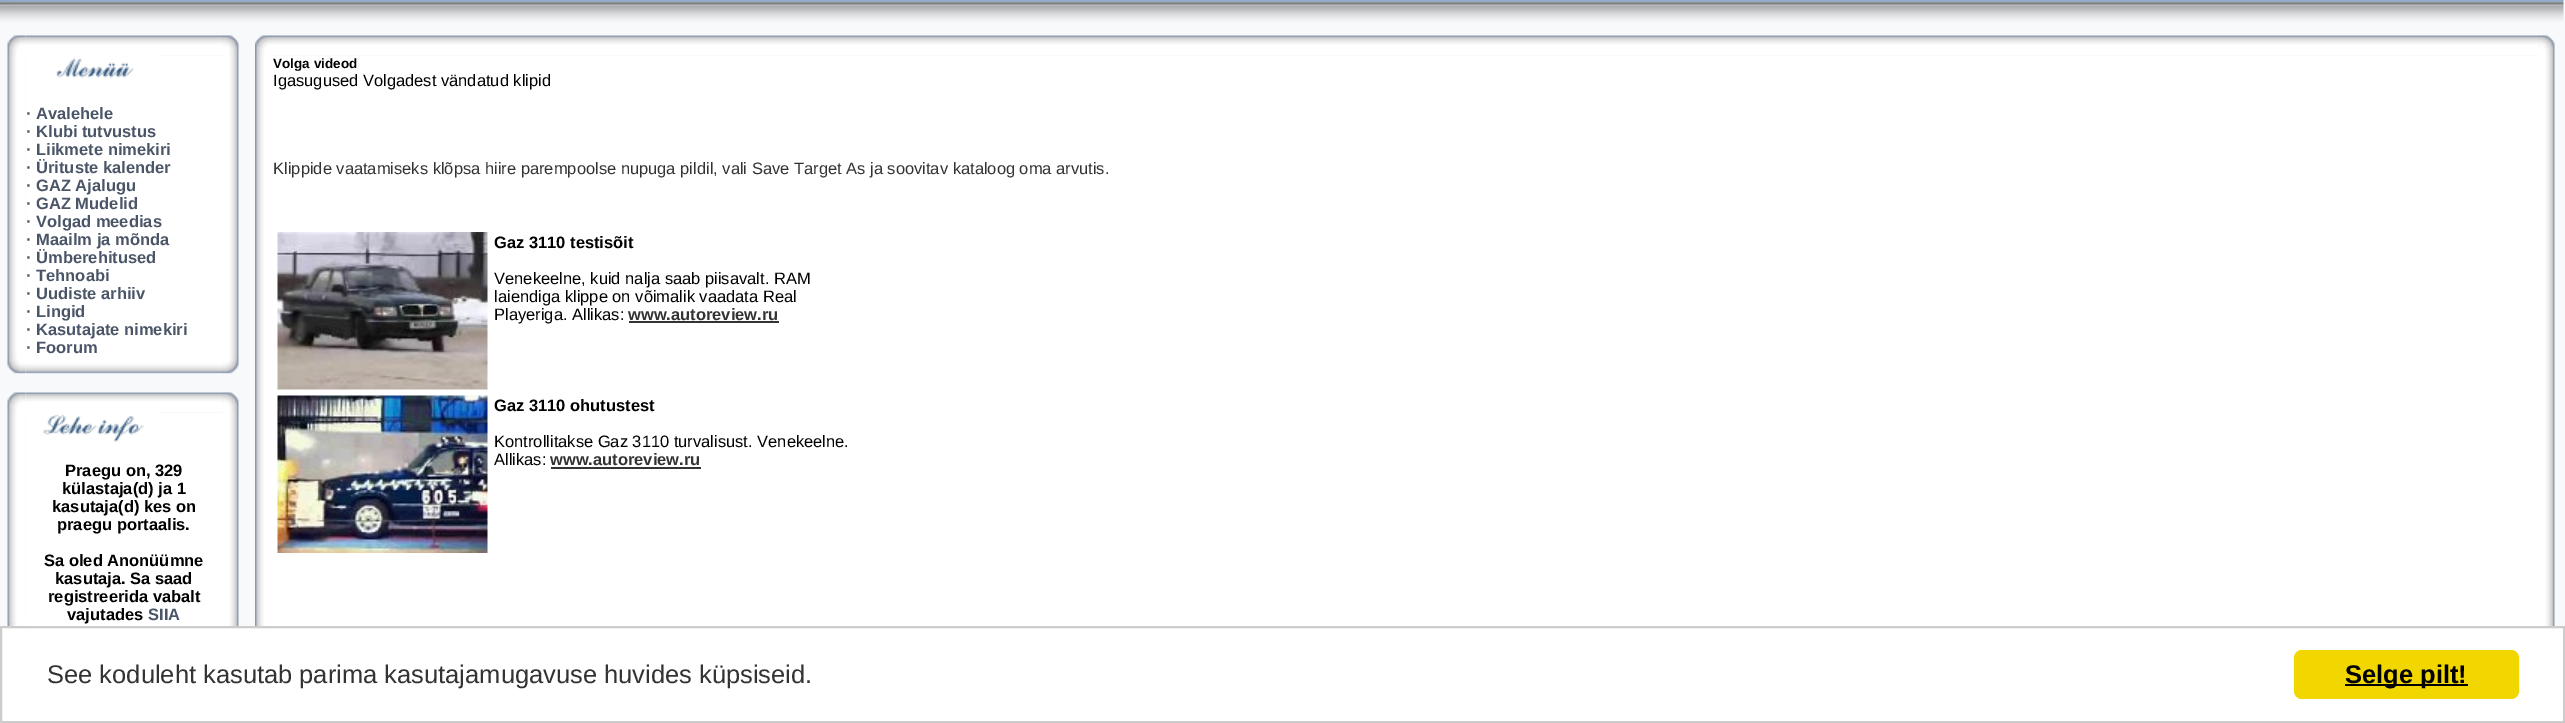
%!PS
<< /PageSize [2565 723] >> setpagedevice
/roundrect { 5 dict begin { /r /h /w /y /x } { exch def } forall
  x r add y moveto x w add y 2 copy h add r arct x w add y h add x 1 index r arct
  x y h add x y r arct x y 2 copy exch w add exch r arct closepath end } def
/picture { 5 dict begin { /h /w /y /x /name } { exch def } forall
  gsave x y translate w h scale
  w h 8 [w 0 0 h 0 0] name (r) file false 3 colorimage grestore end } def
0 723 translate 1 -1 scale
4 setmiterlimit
0.969 0.976 0.984 setrgbcolor
0 0 2565 723 rectfill
(img2.rgb) 12 0 90 6 picture
(img2.rgb) 102 0 90 6 picture
(img2.rgb) 192 0 90 6 picture
(img2.rgb) 282 0 90 6 picture
(img2.rgb) 372 0 90 6 picture
(img2.rgb) 462 0 90 6 picture
(img3.rgb) 552 0 2012 6 picture
(img4.rgb) 0 5 2564 17 picture
(img1.rgb) 0 0 12 6 picture
(img6.rgb) 25 35 197 20 picture
(img5.rgb) 7 35 19 20 picture
(img7.rgb) 222 35 17 20 picture
(img8.rgb) 7 55 19 300 picture
1 setgray
26 56 196 299 rectfill
(img9.rgb) 26 55 133 23 picture
/LiberationSans-Bold [16.5 0 0 -16.5 0 0] selectfont
0.29 0.333 0.408 setrgbcolor
26 119 moveto (· Avalehele) show
26 137 moveto (· Klubi tutvustus) show
26 155 moveto (· Liikmete nimekiri) show
26 173 moveto (· Ürituste kalender) show
26 191 moveto (· GAZ Ajalugu) show
26 209 moveto (· GAZ Mudelid) show
26 227 moveto (· Volgad meedias) show
26 245 moveto (· Maailm ja mõnda) show
26 263 moveto (· Ümberehitused) show
26 281 moveto (· Tehnoabi) show
26 299 moveto (· Uudiste arhiiv) show
26 317 moveto (· Lingid) show
26 335 moveto (· Kasutajate nimekiri) show
26 353 moveto (· Foorum) show
(img10.rgb) 222 55 17 300 picture
(img12.rgb) 25 355 197 19 picture
(img11.rgb) 7 355 19 19 picture
(img13.rgb) 222 355 17 19 picture
(img6.rgb) 25 392 197 20 picture
(img5.rgb) 7 392 19 20 picture
(img7.rgb) 222 392 17 20 picture
(img14.rgb) 7 412 19 210 picture
1 setgray
26 413 196 209 rectfill
(img15.rgb) 26 412 133 30 picture
0 setgray
65 476 moveto (Praegu on, 329) show
62 494 moveto (külastaja\(d\) ja 1) show
52 512 moveto (kasutaja\(d\) kes on) show
57 530 moveto (praegu portaalis.) show
44 566 moveto (Sa oled Anonüümne) show
55 584 moveto (kasutaja. Sa saad) show
48 602 moveto (registreerida vabalt) show
(img18.rgb) 25 622 197 4 picture
67 620 moveto (vajutades) show
0.29 0.333 0.408 setrgbcolor
148 620 moveto (SIIA) show
(img16.rgb) 222 412 17 210 picture
(img17.rgb) 7 622 19 4 picture
(img19.rgb) 222 622 17 4 picture
(img20.rgb) 255 35 18 20 picture
(img21.rgb) 273 35 2265 20 picture
(img7.rgb) 2538 35 17 20 picture
(img22.rgb) 255 55 18 571 picture
1 setgray
273 56 2265 570 rectfill
/LiberationSans-Bold [13.5 0 0 -13.5 0 0] selectfont
0 setgray
273 68 moveto (Volga videod) show
/LiberationSans-Regular [16.5 0 0 -16.5 0 0] selectfont
273 86 moveto (Igasugused Volgadest vändatud klipid) show
0.2 setgray
273 174 moveto (Klippide vaatamiseks klõpsa hiire parempoolse nupuga pildil, vali Save Target As ja soovitav kataloog oma arvutis.) show
(img23.rgb) 277 232 211 158 picture
/LiberationSans-Bold [16.5 0 0 -16.5 0 0] selectfont
0 setgray
494 248 moveto (Gaz 3110 testisõit) show
/LiberationSans-Regular [16.5 0 0 -16.5 0 0] selectfont
494 284 moveto (Venekeelne, kuid nalja saab piisavalt. RAM) show
494 302 moveto (laiendiga klippe on võimalik vaadata Real) show
494 320 moveto (Playeriga. Allikas:) show
/LiberationSans-Bold [16.5 0 0 -16.5 0 0] selectfont
0.2 setgray
628 320 moveto (www.autoreview.ru) show
629 321 150 2 rectfill
(img24.rgb) 277 395 211 158 picture
0 setgray
494 411 moveto (Gaz 3110 ohutustest) show
/LiberationSans-Regular [16.5 0 0 -16.5 0 0] selectfont
494 447 moveto (Kontrollitakse Gaz 3110 turvalisust. Venekeelne.) show
494 465 moveto (Allikas:) show
/LiberationSans-Bold [16.5 0 0 -16.5 0 0] selectfont
0.2 setgray
550 465 moveto (www.autoreview.ru) show
551 467 150 2 rectfill
(img25.rgb) 2538 55 17 571 picture
1 setgray
newpath 1 627 moveto 2564 627 lineto 2564 722 lineto 1 722 lineto closepath gsave fill grestore
0.8 setgray
2 setlinewidth
stroke
/LiberationSans-Regular [25.5 0 0 -25.5 0 0] selectfont
0.2 setgray
47 683 moveto (See koduleht kasutab parima kasutajamugavuse huvides küpsiseid.) show
0.945 0.839 0 setrgbcolor
2294 650 225 49 8 roundrect fill
0 setgray
2345 684 123 2 rectfill
/LiberationSans-Bold [25.5 0 0 -25.5 0 0] selectfont
2345 683 moveto (Selge pilt!) show
showpage
